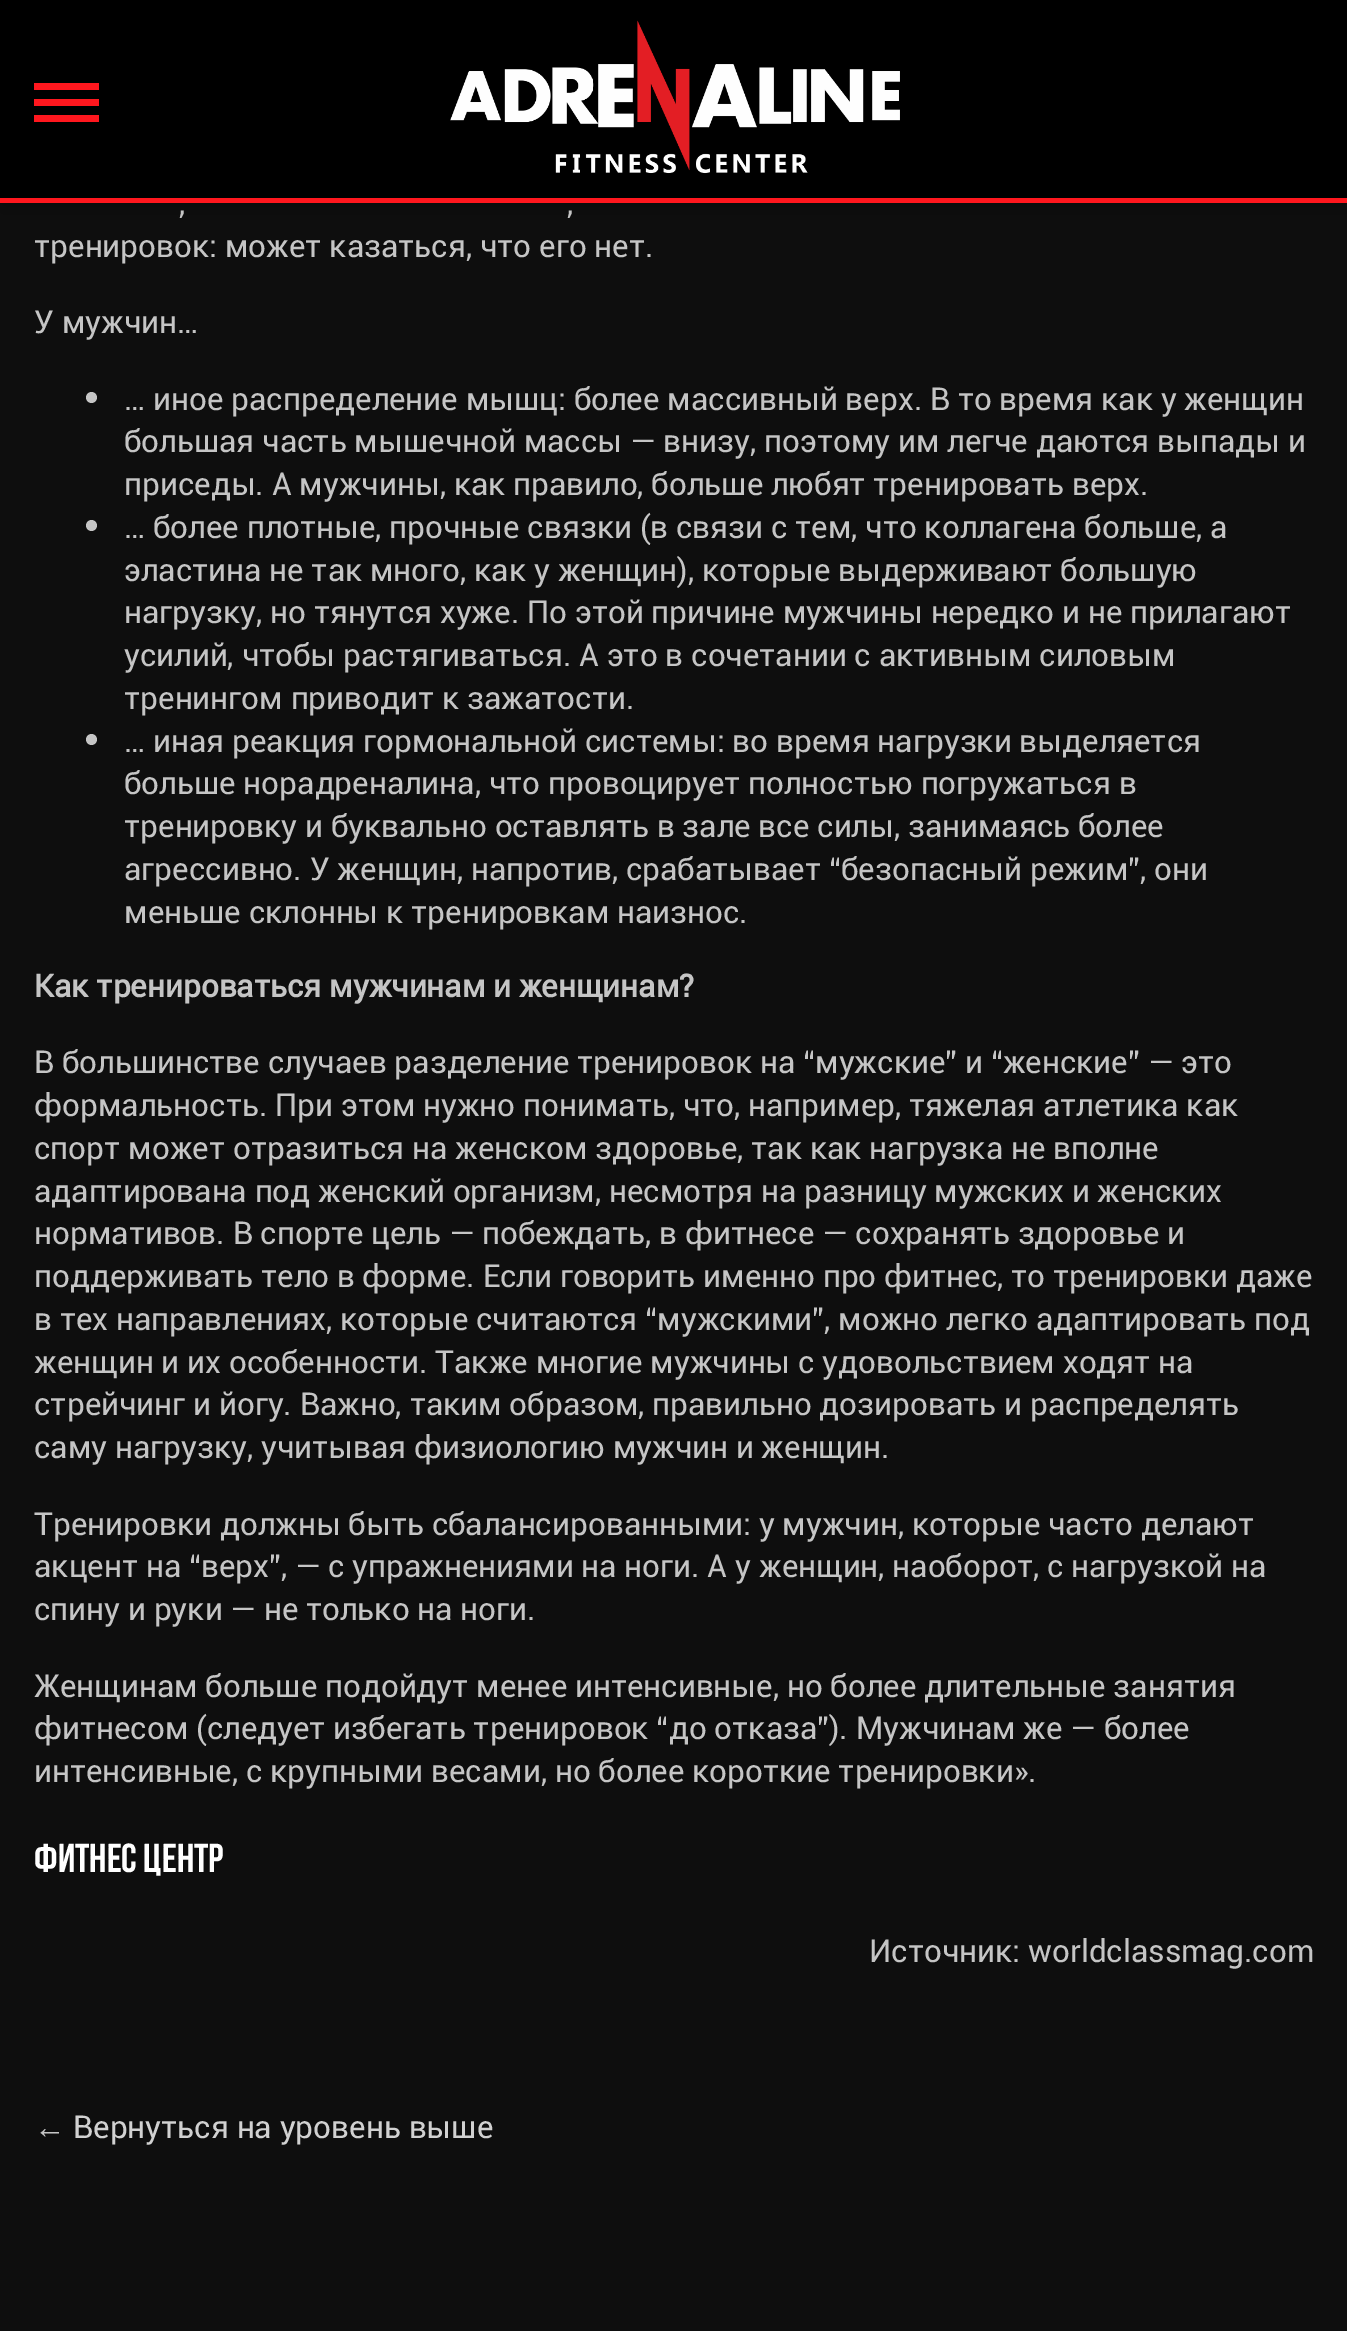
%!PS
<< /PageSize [1347 2331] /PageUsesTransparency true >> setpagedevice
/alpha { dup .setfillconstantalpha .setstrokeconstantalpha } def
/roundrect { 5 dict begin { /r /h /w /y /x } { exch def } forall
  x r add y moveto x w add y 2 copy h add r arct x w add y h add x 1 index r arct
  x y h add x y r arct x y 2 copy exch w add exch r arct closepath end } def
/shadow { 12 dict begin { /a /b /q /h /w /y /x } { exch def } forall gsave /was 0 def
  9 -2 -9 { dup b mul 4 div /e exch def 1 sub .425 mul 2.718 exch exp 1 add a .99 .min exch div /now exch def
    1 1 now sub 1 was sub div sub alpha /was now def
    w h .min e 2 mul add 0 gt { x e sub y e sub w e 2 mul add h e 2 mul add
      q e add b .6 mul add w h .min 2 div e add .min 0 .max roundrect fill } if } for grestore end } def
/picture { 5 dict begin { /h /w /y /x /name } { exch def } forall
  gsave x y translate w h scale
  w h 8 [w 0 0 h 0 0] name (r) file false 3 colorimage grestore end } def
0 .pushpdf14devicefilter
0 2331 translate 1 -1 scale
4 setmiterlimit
0.055 setgray
0 0 1347 2331 rectfill
0 setgray
0 0 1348 203 0 17 0.3 shadow
0 0 1347 198 rectfill
1 0.09 0.118 setrgbcolor
0 198 1347 5 rectfill
34 83 65 7 rectfill
34 99 65 7 rectfill
34 115 65 7 rectfill
(img1.rgb) 450 20 450 154 picture
/Roboto-Regular [31.5 0 0 -31.5 0 0] selectfont
0.773 setgray
179 214 moveto (,) show
567 214 moveto (,) show
34 257 moveto (тренировок: может казаться, что его нет.) show
34 333 moveto (У мужчин…) show
newpath 91.5 397.5 5.5 0 360 arc closepath fill
124 410 moveto (… иное распределение мышц: более массивный верх. В то время как у женщин) show
124 452 moveto (большая часть мышечной массы — внизу, поэтому им легче даются выпады и) show
124 495 moveto (приседы. А мужчины, как правило, больше любят тренировать верх.) show
newpath 91.5 525.5 5.5 0 360 arc closepath fill
124 538 moveto (… более плотные, прочные связки \(в связи с тем, что коллагена больше, а) show
124 581 moveto (эластина не так много, как у женщин\), которые выдерживают большую) show
124 623 moveto (нагрузку, но тянутся хуже. По этой причине мужчины нередко и не прилагают) show
124 666 moveto (усилий, чтобы растягиваться. А это в сочетании с активным силовым) show
124 709 moveto (тренингом приводит к зажатости.) show
newpath 91.5 739.5 5.5 0 360 arc closepath fill
124 752 moveto (… иная реакция гормональной системы: во время нагрузки выделяется) show
124 794 moveto (больше норадреналина, что провоцирует полностью погружаться в) show
124 837 moveto (тренировку и буквально оставлять в зале все силы, занимаясь более) show
124 880 moveto (агрессивно. У женщин, напротив, срабатывает “безопасный режим”, они) show
124 923 moveto (меньше склонны к тренировкам наизнос.) show
/Roboto-Bold [31.5 0 0 -31.5 0 0] selectfont
34 997 moveto (Как тренироваться мужчинам и женщинам?) show
/Roboto-Regular [31.5 0 0 -31.5 0 0] selectfont
34 1073 moveto (В большинстве случаев разделение тренировок на “мужские” и “женские” — это) show
34 1116 moveto (формальность. При этом нужно понимать, что, например, тяжелая атлетика как) show
34 1159 moveto (спорт может отразиться на женском здоровье, так как нагрузка не вполне) show
34 1202 moveto (адаптирована под женский организм, несмотря на разницу мужских и женских) show
34 1244 moveto (нормативов. В спорте цель — побеждать, в фитнесе — сохранять здоровье и) show
34 1287 moveto (поддерживать тело в форме. Если говорить именно про фитнес, то тренировки даже) show
34 1330 moveto (в тех направлениях, которые считаются “мужскими”, можно легко адаптировать под) show
34 1373 moveto (женщин и их особенности. Также многие мужчины с удовольствием ходят на) show
34 1415 moveto (стрейчинг и йогу. Важно, таким образом, правильно дозировать и распределять) show
34 1458 moveto (саму нагрузку, учитывая физиологию мужчин и женщин.) show
34 1535 moveto (Тренировки должны быть сбалансированными: у мужчин, которые часто делают) show
34 1577 moveto (акцент на “верх”, — с упражнениями на ноги. А у женщин, наоборот, с нагрузкой на) show
34 1620 moveto (спину и руки — не только на ноги.) show
34 1697 moveto (Женщинам больше подойдут менее интенсивные, но более длительные занятия) show
34 1739 moveto (фитнесом \(следует избегать тренировок “до отказа”\). Мужчинам же — более) show
34 1782 moveto (интенсивные, с крупными весами, но более короткие тренировки».) show
/BebasNeue-Bold [40.5 0 0 -40.5 0 0] selectfont
1 setgray
34 1872 moveto (Фитнес центр) show
/Roboto-Regular [31.5 0 0 -31.5 0 0] selectfont
0.773 setgray
869 1962 moveto (Источник: worldclassmag.com) show
/LiberationSerif-Regular [31.5 0 0 -31.5 0 0] selectfont
34 2138 moveto (←) show
/Roboto-Regular [31.5 0 0 -31.5 0 0] selectfont
0.82 setgray
73 2138 moveto (Вернуться на уровень выше) show
.poppdf14devicefilter showpage
